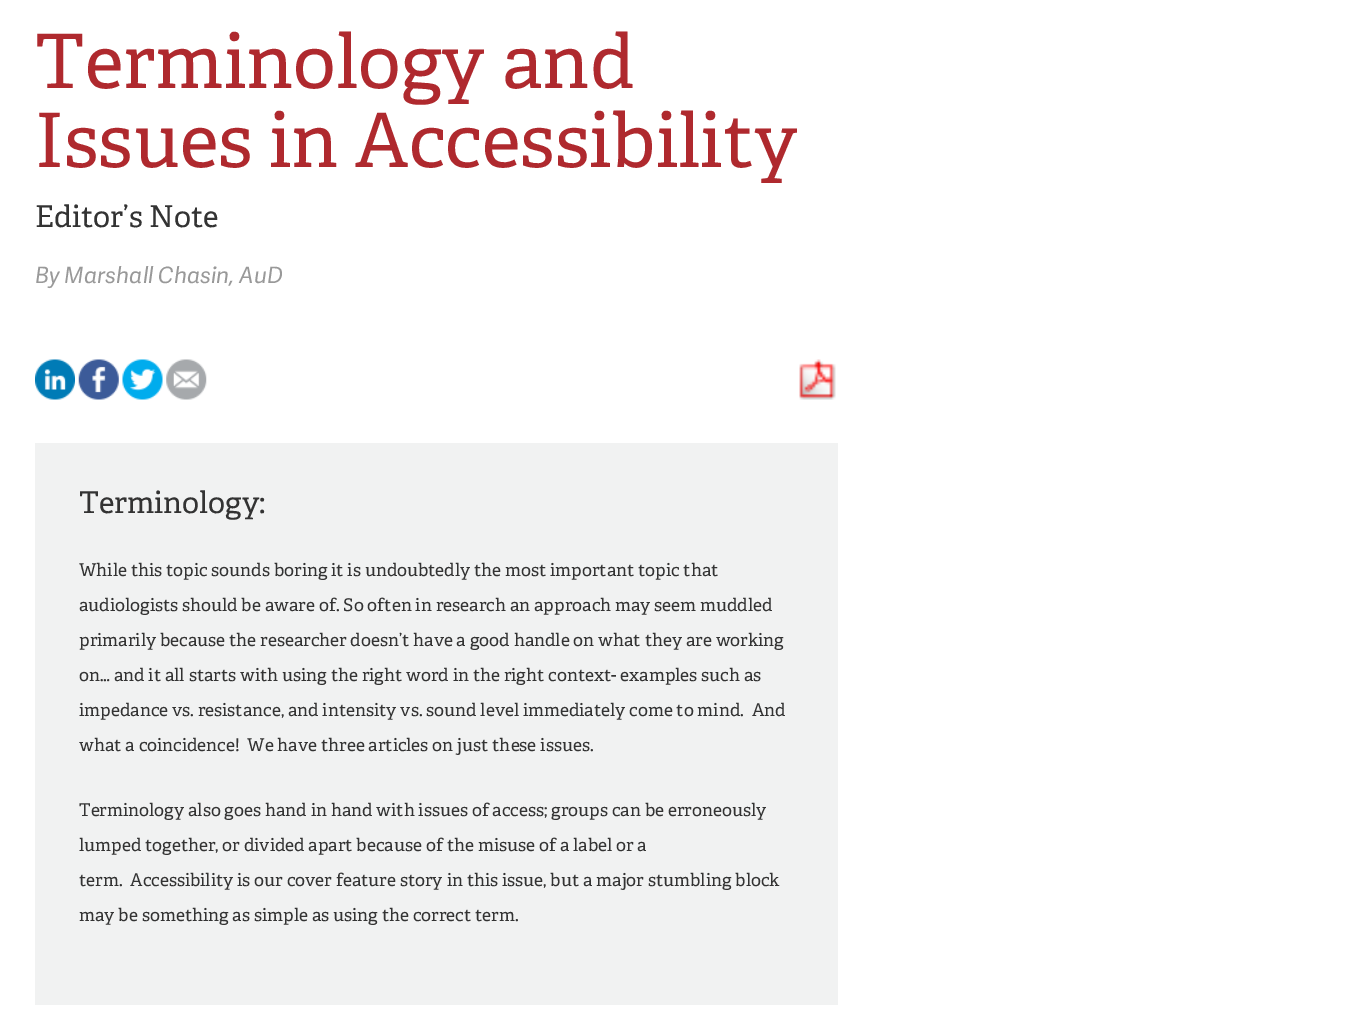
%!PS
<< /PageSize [1358 1026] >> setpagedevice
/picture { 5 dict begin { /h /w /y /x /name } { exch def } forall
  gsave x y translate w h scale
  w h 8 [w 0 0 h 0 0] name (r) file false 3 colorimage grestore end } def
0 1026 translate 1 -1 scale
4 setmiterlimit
1 setgray
0 0 1358 1026 rectfill
/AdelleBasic-Regular [75 0 0 -75 0 0] selectfont
0.686 0.161 0.18 setrgbcolor
35 88 moveto (Terminology and) show
35 167 moveto (Issues in Accessibility) show
/AdelleBasic-Regular [30 0 0 -30 0 0] selectfont
0.2 setgray
35 227 moveto (Editor’s Note) show
/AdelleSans-Italic [22.5 0 0 -22.5 0 0] selectfont
0.6 setgray
35 283 moveto (By Marshall Chasin, AuD) show
(img1.rgb) 35 359 40 41 picture
(img2.rgb) 78 359 41 41 picture
(img3.rgb) 122 359 41 41 picture
(img4.rgb) 166 359 41 41 picture
(img5.rgb) 799 359 37 41 picture
0.945 0.949 0.949 setrgbcolor
35 443 803 562 rectfill
/AdelleBasic-Regular [30 0 0 -30 0 0] selectfont
0.2 setgray
79 513 moveto (Terminology:) show
/AdelleBasic-Regular [17.5 0 0 -17.5 0 0] selectfont
79 576 moveto (While this topic sounds boring it is undoubtedly the most important topic that) show
79 611 moveto (audiologists should be aware of. So often in research an approach may seem muddled) show
79 646 moveto (primarily because the researcher doesn’t have a good handle on what they are working) show
79 681 moveto (on… and it all starts with using the right word in the right context- examples such as) show
79 716 moveto (impedance vs. resistance, and intensity vs. sound level immediately come to mind.  And) show
79 751 moveto (what a coincidence!  We have three articles on just these issues.) show
79 816 moveto (Terminology also goes hand in hand with issues of access; groups can be erroneously) show
79 851 moveto (lumped together, or divided apart because of the misuse of a label or a) show
79 886 moveto (term.  Accessibility is our cover feature story in this issue, but a major stumbling block) show
79 921 moveto (may be something as simple as using the correct term.) show
showpage
